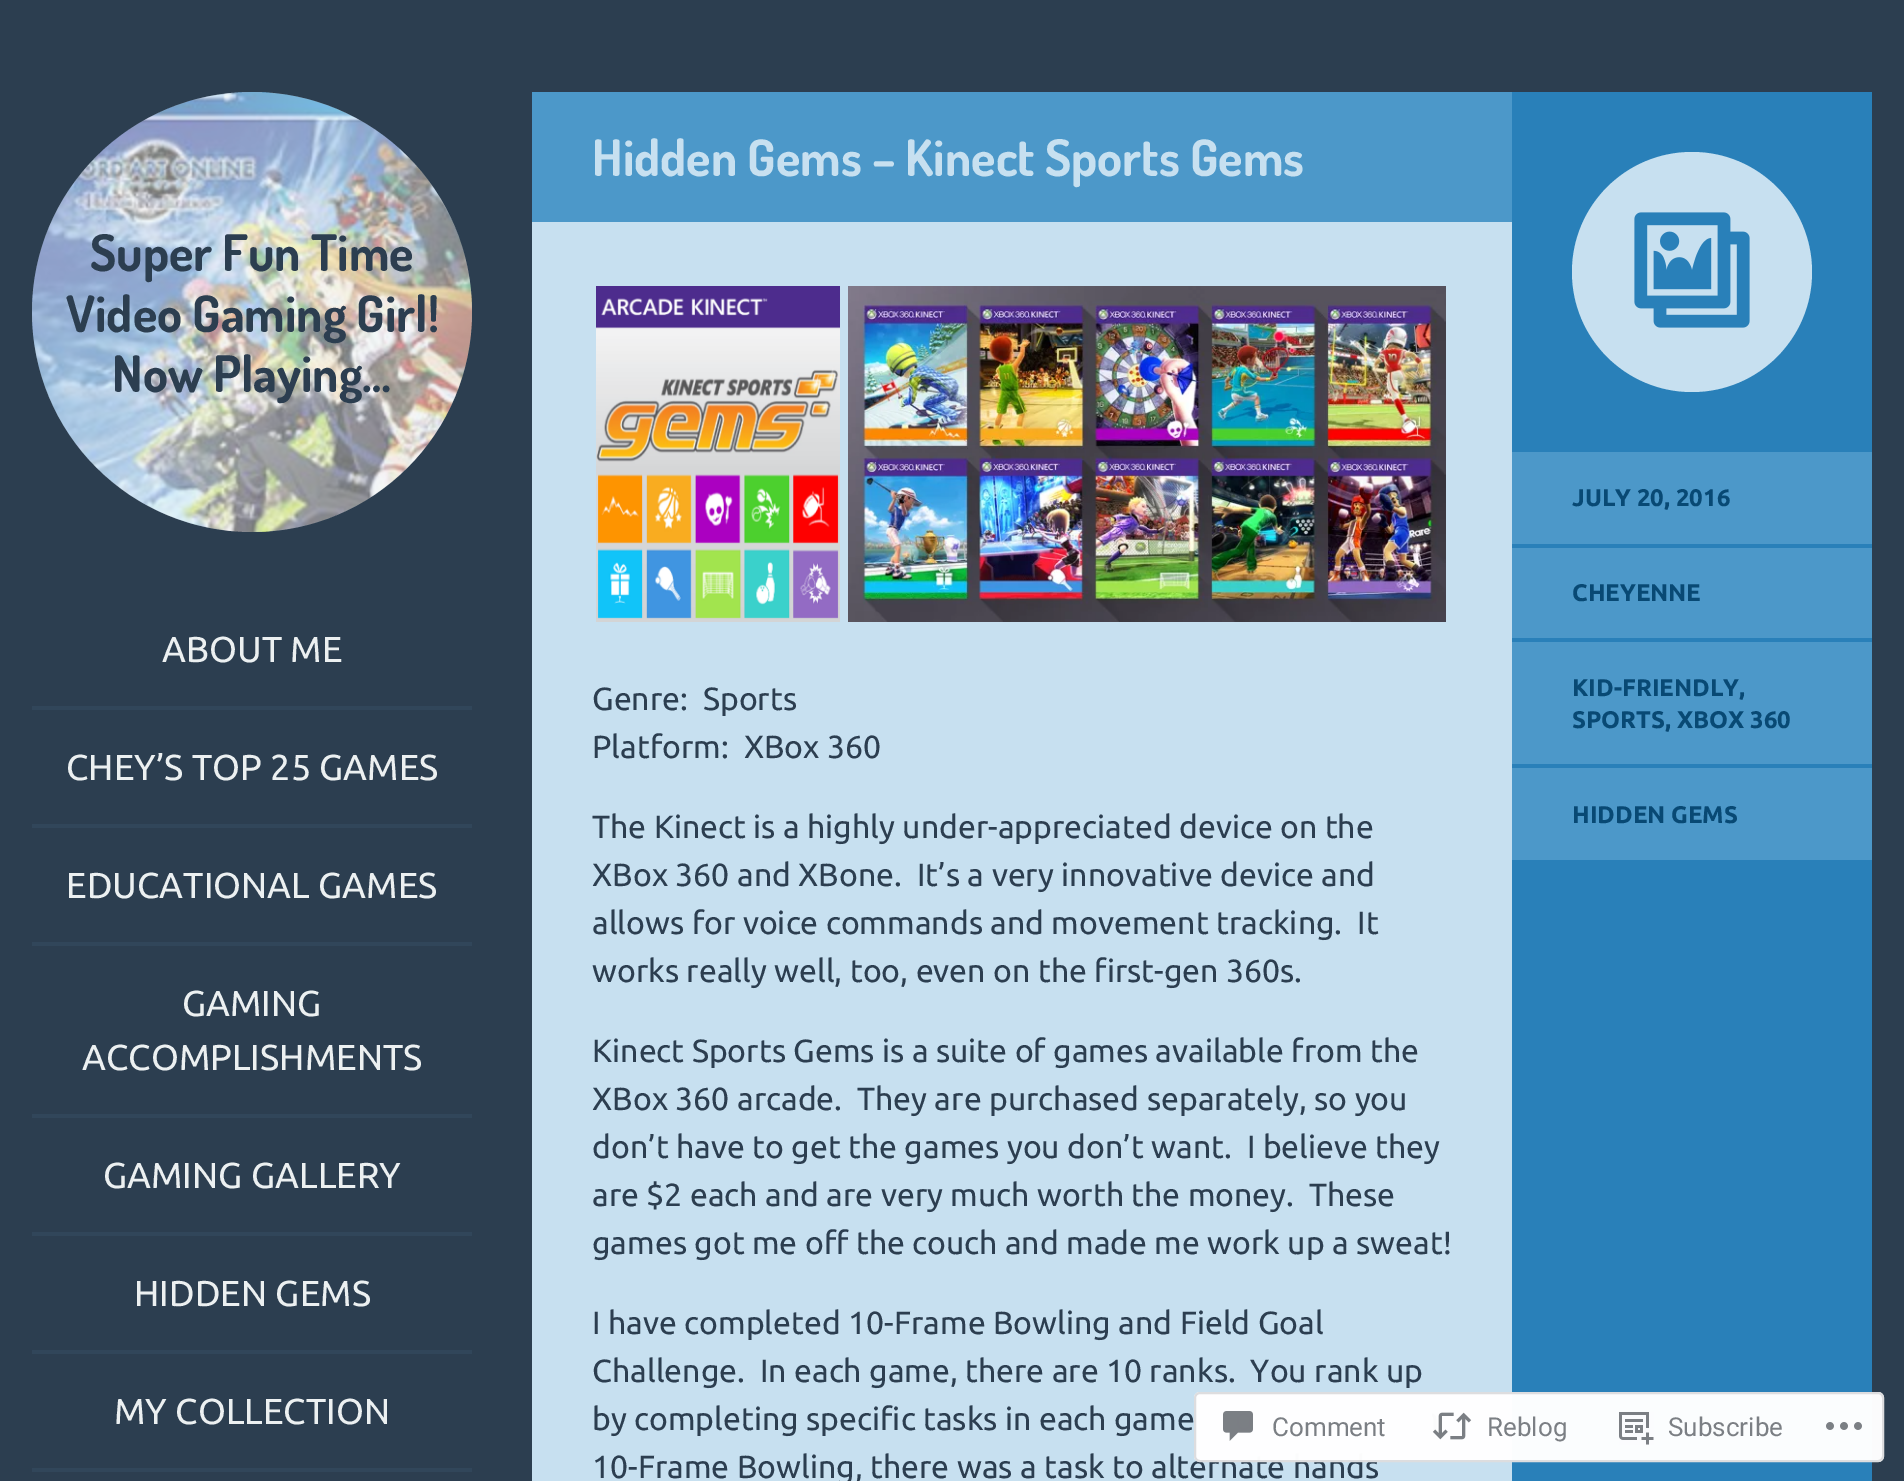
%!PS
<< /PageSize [1904 1481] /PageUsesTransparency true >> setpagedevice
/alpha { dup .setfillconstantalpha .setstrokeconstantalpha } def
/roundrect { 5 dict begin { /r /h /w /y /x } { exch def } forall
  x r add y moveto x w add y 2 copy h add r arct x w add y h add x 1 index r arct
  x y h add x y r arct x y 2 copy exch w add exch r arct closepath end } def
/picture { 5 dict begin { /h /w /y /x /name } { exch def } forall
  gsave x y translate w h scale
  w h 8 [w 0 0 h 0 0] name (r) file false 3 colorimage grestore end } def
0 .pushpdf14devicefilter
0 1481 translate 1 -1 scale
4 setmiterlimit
0.173 0.243 0.314 setrgbcolor
0 0 1904 1481 rectfill
(img1.rgb) 32 92 440 440 picture
0.5 alpha
0.925 0.941 0.945 setrgbcolor
newpath 252 312 220 0 360 arc closepath fill
/Dosis-Bold [50.4 0 0 -50.4 0 0] selectfont
1 alpha
0.173 0.243 0.314 setrgbcolor
90 271 moveto (Super Fun Time) show
66 332 moveto (Video Gaming Girl!) show
112 392 moveto (Now Playing…) show
0.192 0.275 0.353 setrgbcolor
32 706 440 4 rectfill
/Ubuntu-Regular [36 0 0 -36 0 0] selectfont
0.925 0.941 0.945 setrgbcolor
162 662 moveto (ABOUT ME) show
0.192 0.275 0.353 setrgbcolor
32 824 440 4 rectfill
0.925 0.941 0.945 setrgbcolor
66 780 moveto (CHEY’S TOP 25 GAMES) show
0.192 0.275 0.353 setrgbcolor
32 942 440 4 rectfill
0.925 0.941 0.945 setrgbcolor
66 898 moveto (EDUCATIONAL GAMES) show
0.192 0.275 0.353 setrgbcolor
32 1114 440 4 rectfill
0.925 0.941 0.945 setrgbcolor
182 1016 moveto (GAMING) show
82 1070 moveto (ACCOMPLISHMENTS) show
0.192 0.275 0.353 setrgbcolor
32 1232 440 4 rectfill
0.925 0.941 0.945 setrgbcolor
103 1188 moveto (GAMING GALLERY) show
0.192 0.275 0.353 setrgbcolor
32 1350 440 4 rectfill
0.925 0.941 0.945 setrgbcolor
134 1306 moveto (HIDDEN GEMS) show
0.192 0.275 0.353 setrgbcolor
32 1468 440 4 rectfill
0.925 0.941 0.945 setrgbcolor
114 1424 moveto (MY COLLECTION) show
0.78 0.878 0.941 setrgbcolor
532 222 980 1259 rectfill
0.298 0.596 0.788 setrgbcolor
532 92 980 130 rectfill
/Dosis-Bold [50.4 0 0 -50.4 0 0] selectfont
0.78 0.878 0.941 setrgbcolor
592 176 moveto (Hidden Gems – Kinect Sports Gems) show
(img2.rgb) 596 286 244 336 picture
(img3.rgb) 848 286 598 336 picture
/Ubuntu-Regular [32 0 0 -32 0 0] selectfont
0.173 0.243 0.314 setrgbcolor
592 710 moveto (Genre:  Sports) show
592 758 moveto (Platform:  XBox 360) show
592 838 moveto (The Kinect is a highly under-appreciated device on the) show
592 886 moveto (XBox 360 and XBone.  It’s a very innovative device and) show
592 934 moveto (allows for voice commands and movement tracking.  It) show
592 982 moveto (works really well, too, even on the first-gen 360s.) show
592 1062 moveto (Kinect Sports Gems is a suite of games available from the) show
592 1110 moveto (XBox 360 arcade.  They are purchased separately, so you) show
592 1158 moveto (don’t have to get the games you don’t want.  I believe they) show
592 1206 moveto (are $2 each and are very much worth the money.  These) show
592 1254 moveto (games got me off the couch and made me work up a sweat!) show
592 1334 moveto (I have completed 10-Frame Bowling and Field Goal) show
592 1382 moveto (Challenge.  In each game, there are 10 ranks.  You rank up) show
592 1430 moveto (by completing specific tasks in each game) show
592 1478 moveto (10-Frame Bowling, there was a task to alternate hands) show
0.161 0.502 0.725 setrgbcolor
1512 92 360 1389 rectfill
0.78 0.878 0.941 setrgbcolor
newpath 1692 272 120 0 360 arc closepath fill
(img4.rgb) 1634 212 116 116 picture
0.298 0.596 0.788 setrgbcolor
1512 452 360 92 rectfill
/Ubuntu-Bold [24 0 0 -24 0 0] selectfont
0.031 0.286 0.455 setrgbcolor
1572 506 moveto (JULY 20, 2016) show
0.298 0.596 0.788 setrgbcolor
1512 548 360 90 rectfill
0.031 0.286 0.455 setrgbcolor
1572 601 moveto (CHEYENNE) show
0.298 0.596 0.788 setrgbcolor
1512 642 360 122 rectfill
0.031 0.286 0.455 setrgbcolor
1572 696 moveto (KID-FRIENDLY,) show
1572 728 moveto (SPORTS, XBOX 360) show
0.298 0.596 0.788 setrgbcolor
1512 768 360 92 rectfill
0.031 0.286 0.455 setrgbcolor
1572 823 moveto (HIDDEN GEMS) show
0.98 alpha
1 setgray
1194 1392 690 70 6 roundrect fill
0.863 0.863 0.871 setrgbcolor
2 setlinewidth
1195 1393 688 68 5 roundrect stroke
1 alpha
(img5.rgb) 1223 1411 30 30 picture
/Roboto-Regular [26 0 0 -26 0 0] selectfont
0.482 0.498 0.518 setrgbcolor
1272 1436 moveto (Comment) show
(img6.rgb) 1432 1412 40 28 picture
1487 1436 moveto (Reblog) show
(img7.rgb) 1619 1412 35 33 picture
1668 1436 moveto (Subscribe) show
(img8.rgb) 1826 1422 36 8 picture
.poppdf14devicefilter showpage
